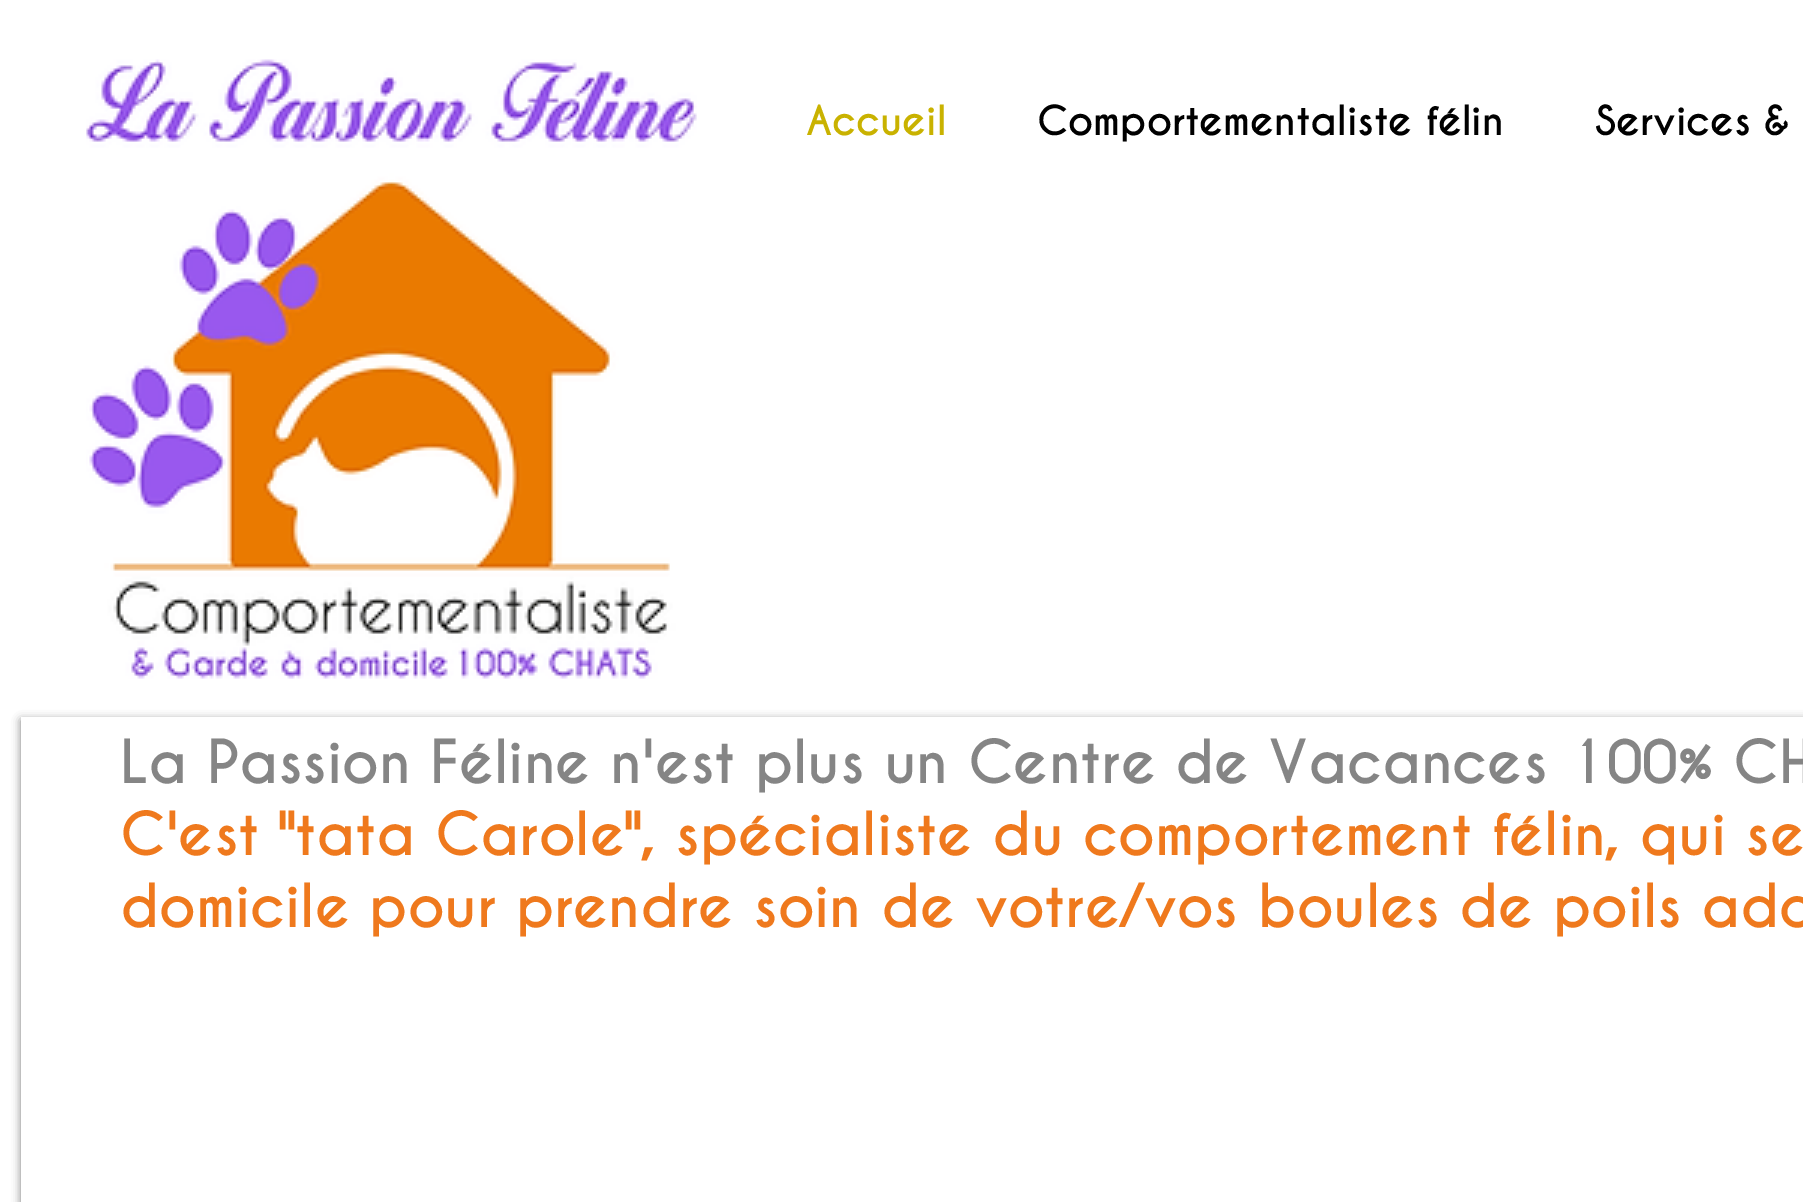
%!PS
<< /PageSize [1803 1202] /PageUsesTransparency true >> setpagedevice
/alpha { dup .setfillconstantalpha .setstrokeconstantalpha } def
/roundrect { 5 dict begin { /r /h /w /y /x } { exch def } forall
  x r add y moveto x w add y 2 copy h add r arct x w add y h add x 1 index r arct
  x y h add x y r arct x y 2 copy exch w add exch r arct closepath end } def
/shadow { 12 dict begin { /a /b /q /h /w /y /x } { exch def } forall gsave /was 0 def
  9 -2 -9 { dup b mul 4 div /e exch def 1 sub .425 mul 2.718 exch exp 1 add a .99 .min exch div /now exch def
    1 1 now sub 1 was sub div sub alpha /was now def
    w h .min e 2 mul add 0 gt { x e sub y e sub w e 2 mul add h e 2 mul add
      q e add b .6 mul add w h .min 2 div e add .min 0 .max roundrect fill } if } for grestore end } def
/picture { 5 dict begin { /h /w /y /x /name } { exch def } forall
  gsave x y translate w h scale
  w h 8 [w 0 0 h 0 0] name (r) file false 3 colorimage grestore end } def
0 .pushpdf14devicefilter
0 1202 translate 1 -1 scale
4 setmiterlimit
1 setgray
0 0 1803 1202 rectfill
(img1.rgb) 86 59 611 620 picture
/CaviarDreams-Bold [39 0 0 -39 0 0] selectfont
0.788 0.698 0 setrgbcolor
806 135 moveto (Accueil) show
0 setgray
1037 135 moveto (Comportementaliste félin) show
1595 135 moveto (Services &) show
gsave
newpath 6 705 moveto 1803 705 lineto 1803 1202 lineto 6 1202 lineto closepath 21 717 moveto 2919 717 lineto 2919 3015 lineto 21 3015 lineto closepath eoclip newpath
21 720 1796 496 0 4.5 0.5 shadow
grestore
/CaviarDreams-Bold [57 0 0 -57 0 0] selectfont
0.522 setgray
120 783 moveto (La Passion Féline n'est plus un Centre de Vacances 100% CH) show
0.937 0.475 0.114 setrgbcolor
120 855 moveto (C'est "tata Carole", spécialiste du comportement félin, qui se) show
120 927 moveto (domicile pour prendre soin de votre/vos boules de poils ado) show
.poppdf14devicefilter showpage
